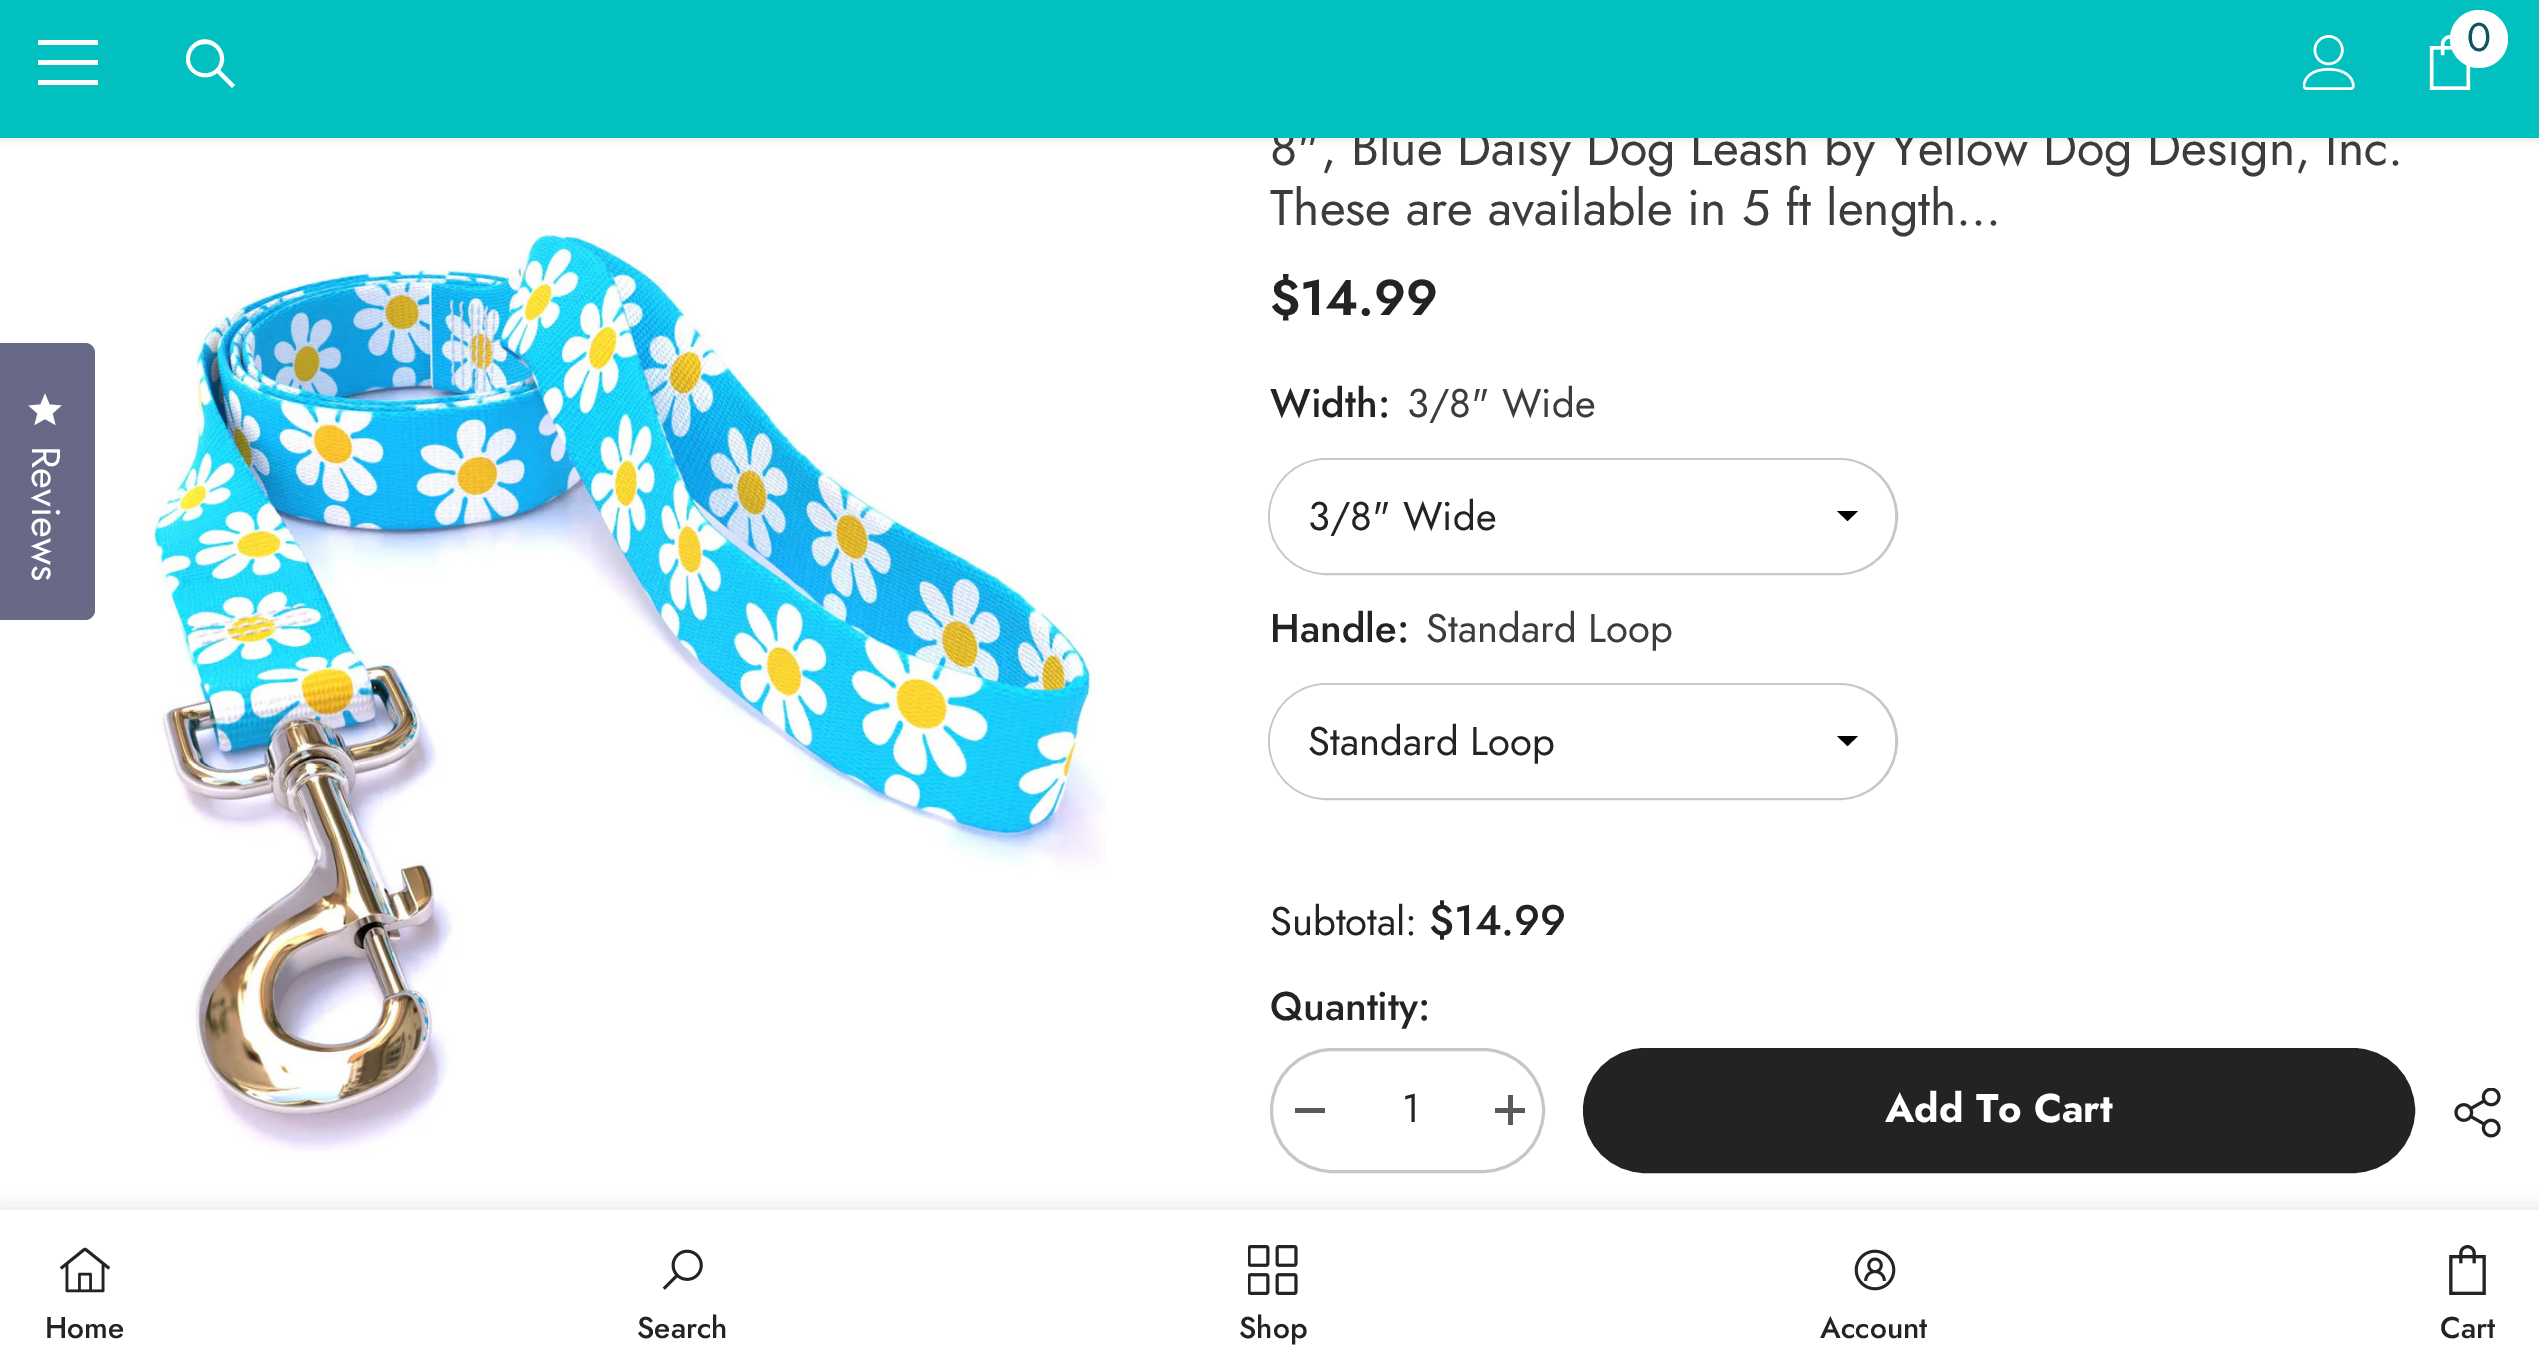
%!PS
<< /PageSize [2539 1368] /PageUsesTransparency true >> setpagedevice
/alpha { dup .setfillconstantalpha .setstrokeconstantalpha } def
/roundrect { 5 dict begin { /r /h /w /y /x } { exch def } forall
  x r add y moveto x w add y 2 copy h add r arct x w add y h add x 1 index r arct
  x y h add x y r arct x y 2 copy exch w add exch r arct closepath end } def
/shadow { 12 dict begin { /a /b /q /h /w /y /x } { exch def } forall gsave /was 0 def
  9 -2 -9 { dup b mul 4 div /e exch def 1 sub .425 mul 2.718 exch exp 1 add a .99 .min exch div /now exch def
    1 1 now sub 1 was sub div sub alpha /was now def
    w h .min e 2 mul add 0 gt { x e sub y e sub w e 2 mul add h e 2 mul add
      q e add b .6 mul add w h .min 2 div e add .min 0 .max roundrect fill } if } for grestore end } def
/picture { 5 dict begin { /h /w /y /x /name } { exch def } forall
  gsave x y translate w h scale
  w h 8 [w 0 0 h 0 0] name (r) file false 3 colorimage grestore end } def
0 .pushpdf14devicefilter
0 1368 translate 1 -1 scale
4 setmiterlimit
1 setgray
0 0 2539 1368 rectfill
0.404 0.412 0.525 setrgbcolor
newpath -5 343 moveto 85 343 lineto 90.5 343 95 347.5 95 353 curveto 95 610 lineto 95 615.5 90.5 620 85 620 curveto -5 620 lineto closepath fill
1 setgray
newpath 45 419 moveto 55.5 425 lineto 52.5 413.5 lineto 61.5 405.5 lineto 49.5 404.5 lineto 45 393.5 lineto 40.5 404.5 lineto 28.5 405.5 lineto 37.5 413.5 lineto 34.5 425 lineto closepath fill
/Jost-Regular [40 0 0 -40 0 0] selectfont
gsave 32 446 translate 90.1 rotate 0 0 moveto (Reviews) show grestore
0 setgray
0 3 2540 137 0 4 0.1 shadow
/Jost-Regular [50 0 0 -50 0 0] selectfont
0.235 setgray
1270 165 moveto (8", Blue Daisy Dog Leash by Yellow Dog Design, Inc.) show
0.012 0.753 0.753 setrgbcolor
0 0 2539 138 rectfill
1 setgray
38 60 60 5 rectfill
38 40 60 5 rectfill
38 80 60 5 rectfill
newpath 186 59 moveto 186 74 205 83 217 73 curveto 232 88 lineto 235 85 lineto 220 70 lineto 234 53 209 28 192 45 curveto 188 49 186 54 186 59 curveto closepath 190 59 moveto 190 39 220 39 220 59 curveto 220 78 190 78 190 59 curveto closepath fill
(img1.rgb) 2303 35 52 55 picture
(img2.rgb) 2429 35 42 55 picture
newpath 2479 39 29 0 360 arc closepath fill
/Jost-Regular [40 0 0 -40 0 0] selectfont
0.075 0.322 0.388 setrgbcolor
2467 51 moveto (0) show
(img3.rgb) 150 231 957 922 picture
/Jost-Regular [50 0 0 -50 0 0] selectfont
0.235 setgray
1270 225 moveto (These are available in 5 ft length...) show
/Jost-SemiBold [50 0 0 -50 0 0] selectfont
0.137 setgray
1270 315 moveto ($14.99) show
/Jost-Medium [40 0 0 -40 0 0] selectfont
1270 417 moveto (Width:) show
/Jost-Regular [40 0 0 -40 0 0] selectfont
0.235 setgray
1407 417 moveto (3/8" Wide) show
0.78 setgray
3 setlinewidth
1269.5 459.5 627 114 57 roundrect stroke
1 setgray
1270 460 625 113 56.5 roundrect fill
0 setgray
newpath 1837 511 moveto 1847.5 521 lineto 1858 511 lineto closepath fill
0.137 setgray
1308 530 moveto (3/8" Wide) show
/Jost-Medium [40 0 0 -40 0 0] selectfont
1270 642 moveto (Handle:) show
/Jost-Regular [40 0 0 -40 0 0] selectfont
0.235 setgray
1426 642 moveto (Standard Loop) show
0.78 setgray
1269.5 684.5 627 114 57 roundrect stroke
1 setgray
1270 685 625 113 56.5 roundrect fill
0 setgray
newpath 1837 736 moveto 1847.5 746 lineto 1858 736 lineto closepath fill
0.137 setgray
1308 755 moveto (Standard Loop) show
1270 935 moveto (Subtotal:) show
/Jost-Medium [42.5 0 0 -42.5 0 0] selectfont
1429 935 moveto ($14.99) show
/Jost-Medium [40 0 0 -40 0 0] selectfont
1270 1020 moveto (Quantity:) show
0.78 setgray
1271.5 1049.5 272 122 61 roundrect stroke
0.353 setgray
1295 1108 30 5 rectfill
/Jost-Regular [40 0 0 -40 0 0] selectfont
0.137 setgray
1402 1122 moveto (1) show
0.353 setgray
1495 1108 30 5 rectfill
1508 1095 5 30 rectfill
0.137 setgray
1584.5 1049.5 829 122 61 roundrect gsave fill grestore
stroke
/Jost-Bold [40 0 0 -40 0 0] selectfont
1 setgray
1885 1122 moveto (Add To Cart) show
(img4.rgb) 2454 1088 47 50 picture
0 setgray
0 1210 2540 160 0 11 0.12 shadow
1 setgray
0 1210 2539 158 rectfill
(img5.rgb) 60 1247 50 46 picture
/Jost-Medium [30 0 0 -30 0 0] selectfont
0.137 setgray
45 1338 moveto (Home) show
(img6.rgb) 662 1249 41 41 picture
637 1338 moveto (Search) show
(img7.rgb) 1248 1245 50 50 picture
1239 1338 moveto (Shop) show
(img8.rgb) 1854 1249 42 42 picture
1820 1338 moveto (Account) show
(img9.rgb) 2449 1245 37 50 picture
2440 1338 moveto (Cart) show
.poppdf14devicefilter showpage
